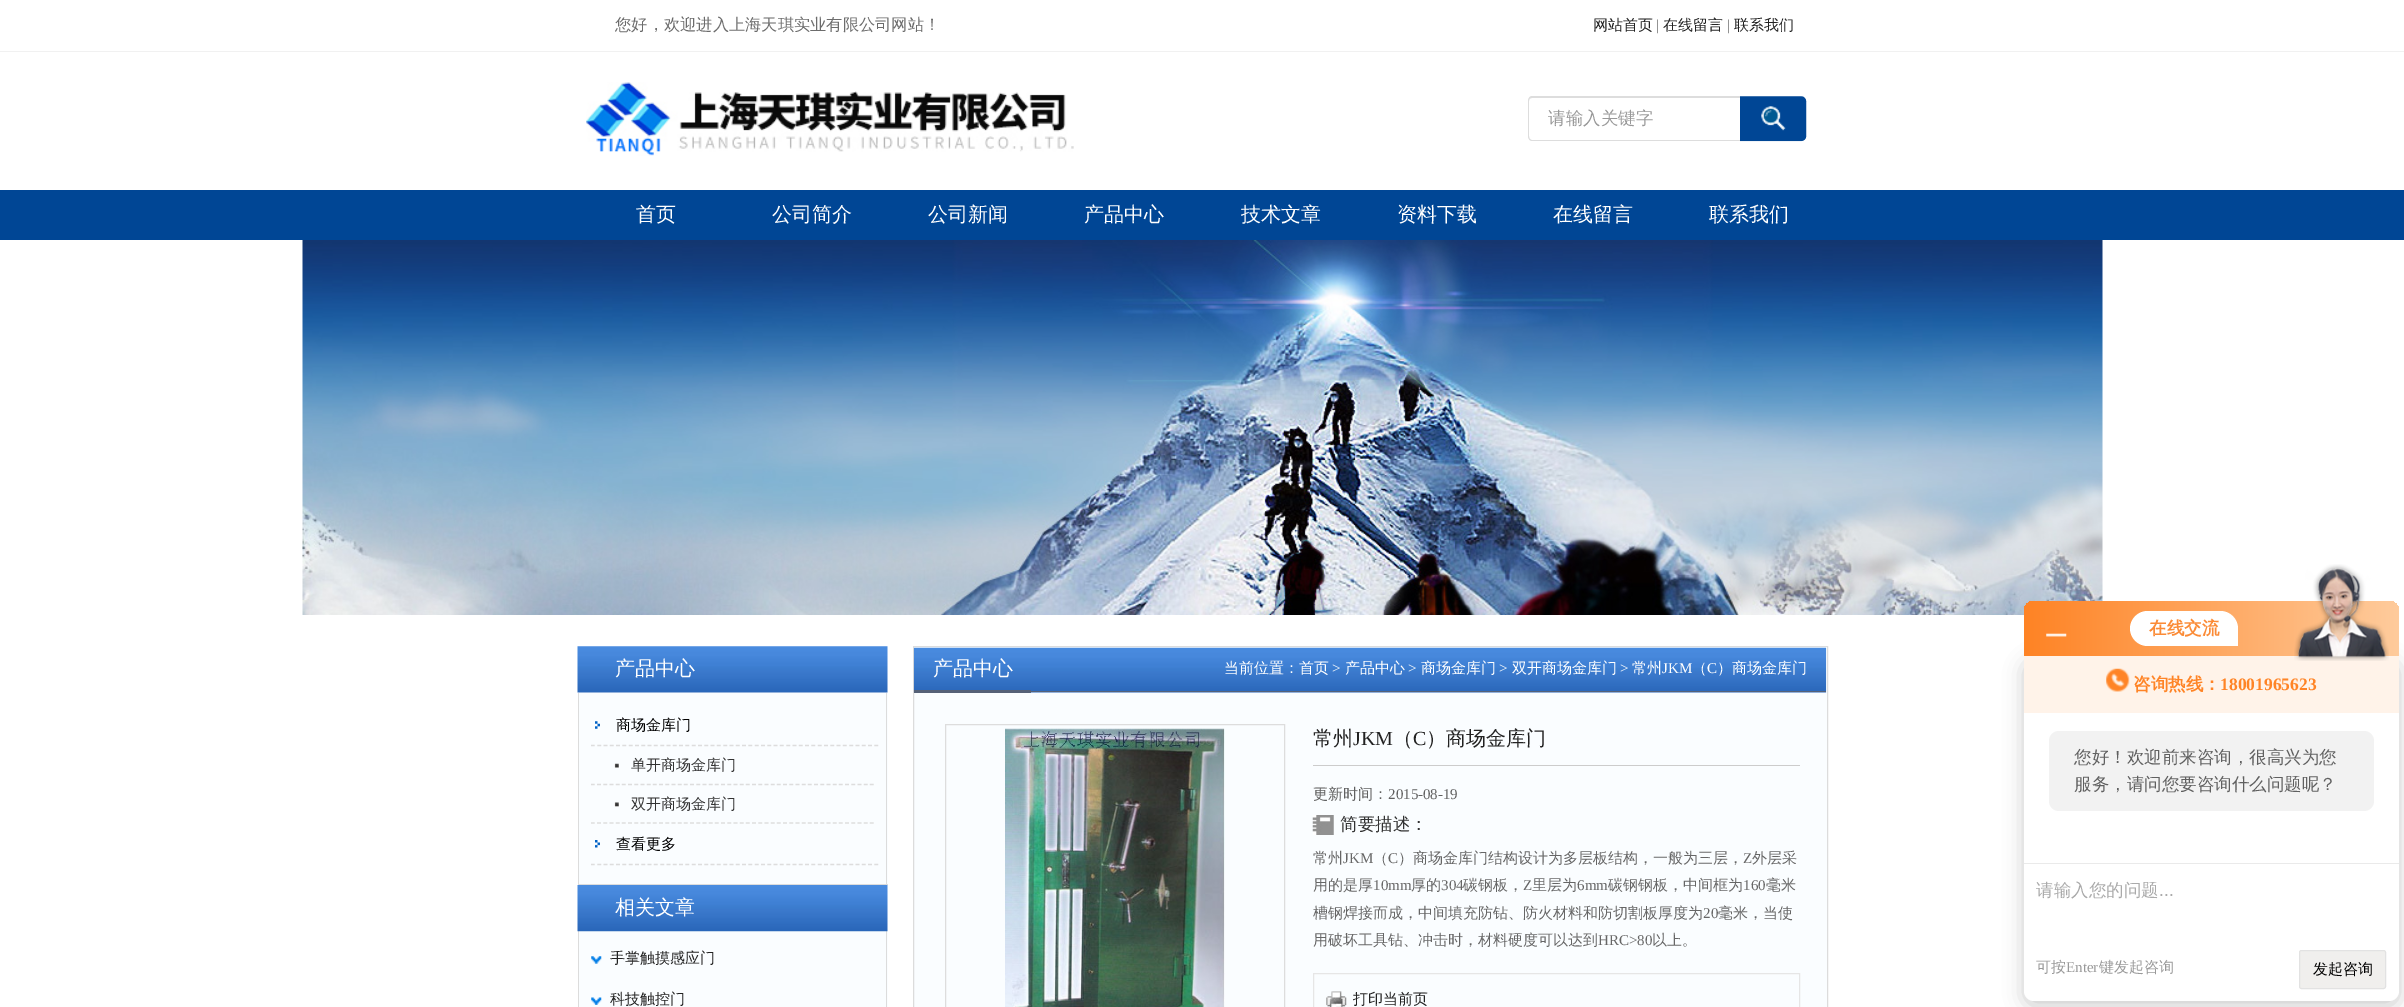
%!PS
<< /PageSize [2404 1007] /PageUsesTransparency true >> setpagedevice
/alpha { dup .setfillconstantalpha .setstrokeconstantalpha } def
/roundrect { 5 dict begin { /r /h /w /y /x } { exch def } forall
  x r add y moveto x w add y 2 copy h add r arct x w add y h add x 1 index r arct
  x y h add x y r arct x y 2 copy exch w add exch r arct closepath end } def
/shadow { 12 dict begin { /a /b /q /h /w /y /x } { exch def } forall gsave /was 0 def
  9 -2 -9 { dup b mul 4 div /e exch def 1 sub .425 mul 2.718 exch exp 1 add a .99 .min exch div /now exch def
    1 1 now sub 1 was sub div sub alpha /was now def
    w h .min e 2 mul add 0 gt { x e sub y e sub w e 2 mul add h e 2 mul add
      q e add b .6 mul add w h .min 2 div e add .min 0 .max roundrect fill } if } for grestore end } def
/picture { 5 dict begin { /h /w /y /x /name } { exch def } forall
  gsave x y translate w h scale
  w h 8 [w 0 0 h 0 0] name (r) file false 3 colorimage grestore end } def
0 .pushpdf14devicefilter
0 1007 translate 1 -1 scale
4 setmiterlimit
1 setgray
0 0 2404 1007 rectfill
0.945 setgray
0 51 2404 1 rectfill
/WenQuanYiZenHei-Medium [16.25 0 0 -16.25 0 0] selectfont
0.424 setgray
615 30 moveto (您好，欢迎进入上海天琪实业有限公司网站！) show
/WenQuanYiZenHei-Medium [15 0 0 -15 0 0] selectfont
0.133 setgray
1593 30 moveto (网站首页) show
/LiberationSerif-Regular [15 0 0 -15 0 0] selectfont
0.424 setgray
1656 30 moveto (|) show
/WenQuanYiZenHei-Medium [15 0 0 -15 0 0] selectfont
0.133 setgray
1663 30 moveto (在线留言) show
/LiberationSerif-Regular [15 0 0 -15 0 0] selectfont
0.424 setgray
1727 30 moveto (|) show
/WenQuanYiZenHei-Medium [15 0 0 -15 0 0] selectfont
0.133 setgray
1734 30 moveto (联系我们) show
(img1.rgb) 586 82 488 74 picture
0.867 setgray
newpath 1532 96 moveto 1740 96 lineto 1740 141 lineto 1532 141 lineto 1530 141 1528 139 1528 136 curveto 1528 101 lineto 1528 98 1530 96 1532 96 curveto closepath 1532 98 moveto 1740 98 lineto 1740 140 lineto 1532 140 lineto 1530 140 1529 138 1529 136 curveto 1529 101 lineto 1529 99 1530 98 1532 98 curveto closepath eofill
/WenQuanYiZenHei-Medium [17.5 0 0 -17.5 0 0] selectfont
0.6 setgray
1548 124 moveto (请输入关键字) show
(img2.rgb) 1740 96 67 46 picture
0 0.275 0.584 setrgbcolor
0 190 2404 50 rectfill
/WenQuanYiZenHei-Medium [20 0 0 -20 0 0] selectfont
1 setgray
636 221 moveto (首页) show
772 221 moveto (公司简介) show
928 221 moveto (公司新闻) show
1084 221 moveto (产品中心) show
1241 221 moveto (技术文章) show
1397 221 moveto (资料下载) show
1553 221 moveto (在线留言) show
1709 221 moveto (联系我们) show
(img3.rgb) 302 240 1801 375 picture
(img4.rgb) 577 646 311 47 picture
615 675 moveto (产品中心) show
0.98 0.992 1 setrgbcolor
579 693 309 191 rectfill
0.863 setgray
886 693 1 192 rectfill
578 884 310 1 rectfill
578 693 1 192 rectfill
(img5.rgb) 595 721 5 8 picture
0.867 setgray
1.2 setlinewidth
[3.75 2.55] 0 setdash
newpath 591 745.5 moveto 879 745.5 lineto stroke
/WenQuanYiZenHei-Medium [15 0 0 -15 0 0] selectfont
0 setgray
616 730 moveto (商场金库门) show
0.867 setgray
[3.75 2.45] 0 setdash
newpath 591 784.5 moveto 874 784.5 lineto stroke
(img6.rgb) 614 763 6 5 picture
0.2 setgray
631 770 moveto (单开商场金库门) show
0.867 setgray
newpath 591 823 moveto 874 823 lineto stroke
(img7.rgb) 614 802 6 5 picture
0.2 setgray
631 809 moveto (双开商场金库门) show
(img8.rgb) 595 840 5 8 picture
0.867 setgray
[3.75 2.55] 0 setdash
newpath 591 864.5 moveto 879 864.5 lineto stroke
0 setgray
616 849 moveto (查看更多) show
0.98 0.992 1 setrgbcolor
579 931 309 76 rectfill
0.863 setgray
886 931 1 76 rectfill
578 931 1 76 rectfill
(img9.rgb) 577 885 311 47 picture
/WenQuanYiZenHei-Medium [20 0 0 -20 0 0] selectfont
1 setgray
615 914 moveto (相关文章) show
(img10.rgb) 591 956 11 8 picture
/WenQuanYiZenHei-Medium [15 0 0 -15 0 0] selectfont
0.133 setgray
610 963 moveto (手掌触摸感应门) show
(img11.rgb) 591 997 11 8 picture
610 1004 moveto (科技触控门) show
0.98 0.992 1 setrgbcolor
newpath 913.5 646.5 moveto 1827.5 646.5 lineto 1827.5 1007.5 lineto 913.5 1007.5 lineto closepath gsave fill grestore
0.863 setgray
1 setlinewidth
[] 0 setdash
stroke
(img12.rgb) 913 647 914 46 picture
0.333 0.38 0.467 setrgbcolor
1031 691 795 1 rectfill
914 690 117 3 rectfill
/WenQuanYiZenHei-Medium [20 0 0 -20 0 0] selectfont
1 setgray
933 675 moveto (产品中心) show
/WenQuanYiZenHei-Medium [15 0 0 -15 0 0] selectfont
1224 673 moveto (当前位置：首页) show
/LiberationSerif-Regular [15 0 0 -15 0 0] selectfont
1332 673 moveto (>) show
/WenQuanYiZenHei-Medium [15 0 0 -15 0 0] selectfont
1345 673 moveto (产品中心) show
/LiberationSerif-Regular [15 0 0 -15 0 0] selectfont
1408 673 moveto (>) show
/WenQuanYiZenHei-Medium [15 0 0 -15 0 0] selectfont
1421 673 moveto (商场金库门) show
/LiberationSerif-Regular [15 0 0 -15 0 0] selectfont
1499 673 moveto (>) show
/WenQuanYiZenHei-Medium [15 0 0 -15 0 0] selectfont
1512 673 moveto (双开商场金库门) show
/LiberationSerif-Regular [15 0 0 -15 0 0] selectfont
1620 673 moveto (>) show
/WenQuanYiZenHei-Medium [15 0 0 -15 0 0] selectfont
1632 673 moveto (常州) show
/LiberationSerif-Regular [15 0 0 -15 0 0] selectfont
1662 673 moveto (JKM) show
/WenQuanYiZenHei-Medium [15 0 0 -15 0 0] selectfont
1692 673 moveto (（) show
/LiberationSerif-Regular [15 0 0 -15 0 0] selectfont
1707 673 moveto (C) show
/WenQuanYiZenHei-Medium [15 0 0 -15 0 0] selectfont
1717 673 moveto (）商场金库门) show
0.867 setgray
945.5 724.5 339 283 rectstroke
(img13.rgb) 1005 728 220 279 picture
0.8 setgray
1313 765 487 1 rectfill
/WenQuanYiZenHei-Medium [20 0 0 -20 0 0] selectfont
0.133 setgray
1313 745 moveto (常州) show
/LiberationSerif-Regular [20 0 0 -20 0 0] selectfont
1353 745 moveto (JKM) show
/WenQuanYiZenHei-Medium [20 0 0 -20 0 0] selectfont
1393 745 moveto (（) show
/LiberationSerif-Regular [20 0 0 -20 0 0] selectfont
1413 745 moveto (C) show
/WenQuanYiZenHei-Medium [20 0 0 -20 0 0] selectfont
1426 745 moveto (）商场金库门) show
/WenQuanYiZenHei-Medium [15 0 0 -15 0 0] selectfont
0.376 setgray
1313 799 moveto (更新时间：) show
/LiberationSerif-Regular [15 0 0 -15 0 0] selectfont
1388 799 moveto (2015-08-19) show
(img14.rgb) 1312 815 22 20 picture
/WenQuanYiZenHei-Medium [17.5 0 0 -17.5 0 0] selectfont
0.2 setgray
1340 830 moveto (简要描述：) show
/WenQuanYiZenHei-Medium [15 0 0 -15 0 0] selectfont
0.4 setgray
1313 863 moveto (常州) show
/LiberationSerif-Regular [15 0 0 -15 0 0] selectfont
1343 863 moveto (JKM) show
/WenQuanYiZenHei-Medium [15 0 0 -15 0 0] selectfont
1373 863 moveto (（) show
/LiberationSerif-Regular [15 0 0 -15 0 0] selectfont
1388 863 moveto (C) show
/WenQuanYiZenHei-Medium [15 0 0 -15 0 0] selectfont
1398 863 moveto (）商场金库门结构设计为多层板结构，一般为三层，) show
/LiberationSerif-Regular [15 0 0 -15 0 0] selectfont
1743 863 moveto (Z) show
/WenQuanYiZenHei-Medium [15 0 0 -15 0 0] selectfont
1752 863 moveto (外层采) show
1313 890 moveto (用的是厚) show
/LiberationSerif-Regular [15 0 0 -15 0 0] selectfont
1373 890 moveto (10mm) show
/WenQuanYiZenHei-Medium [15 0 0 -15 0 0] selectfont
1411 890 moveto (厚的) show
/LiberationSerif-Regular [15 0 0 -15 0 0] selectfont
1441 890 moveto (304) show
/WenQuanYiZenHei-Medium [15 0 0 -15 0 0] selectfont
1463 890 moveto (碳钢板，) show
/LiberationSerif-Regular [15 0 0 -15 0 0] selectfont
1523 890 moveto (Z) show
/WenQuanYiZenHei-Medium [15 0 0 -15 0 0] selectfont
1532 890 moveto (里层为) show
/LiberationSerif-Regular [15 0 0 -15 0 0] selectfont
1577 890 moveto (6mm) show
/WenQuanYiZenHei-Medium [15 0 0 -15 0 0] selectfont
1608 890 moveto (碳钢钢板，中间框为) show
/LiberationSerif-Regular [15 0 0 -15 0 0] selectfont
1743 890 moveto (160) show
/WenQuanYiZenHei-Medium [15 0 0 -15 0 0] selectfont
1766 890 moveto (毫米) show
1313 918 moveto (槽钢焊接而成，中间填充防钻、防火材料和防切割板厚度为) show
/LiberationSerif-Regular [15 0 0 -15 0 0] selectfont
1703 918 moveto (20) show
/WenQuanYiZenHei-Medium [15 0 0 -15 0 0] selectfont
1718 918 moveto (毫米，当使) show
1313 945 moveto (用破坏工具钻、冲击时，材料硬度可以达到) show
/LiberationSerif-Regular [15 0 0 -15 0 0] selectfont
1598 945 moveto (HRC>80) show
/WenQuanYiZenHei-Medium [15 0 0 -15 0 0] selectfont
1652 945 moveto (以上。) show
0.902 setgray
1313.5 973.5 486 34 rectstroke
(img15.rgb) 1326 991 21 16 picture
0.133 setgray
1353 1004 moveto (打印当前页) show
0 setgray
2024 661 375 345 10 10 0.2 shadow
gsave newpath 2034 601 moveto 2389 601 lineto 2394.5 601 2399 605.5 2399 611 curveto 2399 656 lineto 2024 656 lineto 2024 611 lineto 2024 605.5 2028.5 601 2034 601 curveto closepath clip newpath
<< /ShadingType 2 /ColorSpace /DeviceRGB /Coords [2024 629 2399 629] /Extend [true true] /Function << /FunctionType 2 /Domain [0 1] /C0 [1 0.514 0.141] /C1 [0.996 0.796 0.612] /N 1 >> >> shfill grestore
(img16.rgb) 2046 633 21 4 picture
1 setgray
newpath 2147.5 611 moveto 2220.5 611 lineto 2230 611 2238 619 2238 628.5 curveto 2238 646 lineto 2147.5 646 lineto 2138 646 2130 638 2130 628.5 curveto 2130 619 2138 611 2147.5 611 curveto closepath fill
/WenQuanYiZenHei-Bold [17.5 0 0 -17.5 0 0] selectfont
0.984 0.545 0.212 setrgbcolor
2149 634 moveto (在线交流) show
1 setgray
newpath 2024 656 moveto 2399 656 lineto 2399 991 lineto 2399 996.5 2394.5 1001 2389 1001 curveto 2034 1001 lineto 2028.5 1001 2024 996.5 2024 991 curveto closepath fill
1 0.953 0.914 setrgbcolor
2024 656 375 57 rectfill
(img17.rgb) 2294 564 95 97 picture
(img18.rgb) 2106 668 24 24 picture
1 0.518 0.149 setrgbcolor
2133 690 moveto (咨询热线：) show
/LiberationSerif-Bold [17.5 0 0 -17.5 0 0] selectfont
2220 690 moveto (18001965623) show
0.949 setgray
2049 731 325 80 10 roundrect fill
/WenQuanYiZenHei-Medium [17.5 0 0 -17.5 0 0] selectfont
0.376 setgray
2074 763 moveto (您好！欢迎前来咨询，很高兴为您) show
2074 790 moveto (服务，请问您要咨询什么问题呢？) show
0.918 setgray
2024 863 375 1 rectfill
0.667 setgray
2036 896 moveto (请输入您的问题) show
/LiberationSans-Regular [17.5 0 0 -17.5 0 0] selectfont
2159 896 moveto (...) show
/WenQuanYiZenHei-Medium [15 0 0 -15 0 0] selectfont
0.6 setgray
2036 972 moveto (可按) show
/LiberationSerif-Regular [15 0 0 -15 0 0] selectfont
2066 972 moveto (Enter) show
/WenQuanYiZenHei-Medium [15 0 0 -15 0 0] selectfont
2099 972 moveto (键发起咨询) show
0.941 0.937 0.929 setrgbcolor
2299.5 950.5 86 38 2 roundrect gsave fill grestore
0.886 setgray
stroke
0 setgray
2313 974 moveto (发起咨询) show
.poppdf14devicefilter showpage
